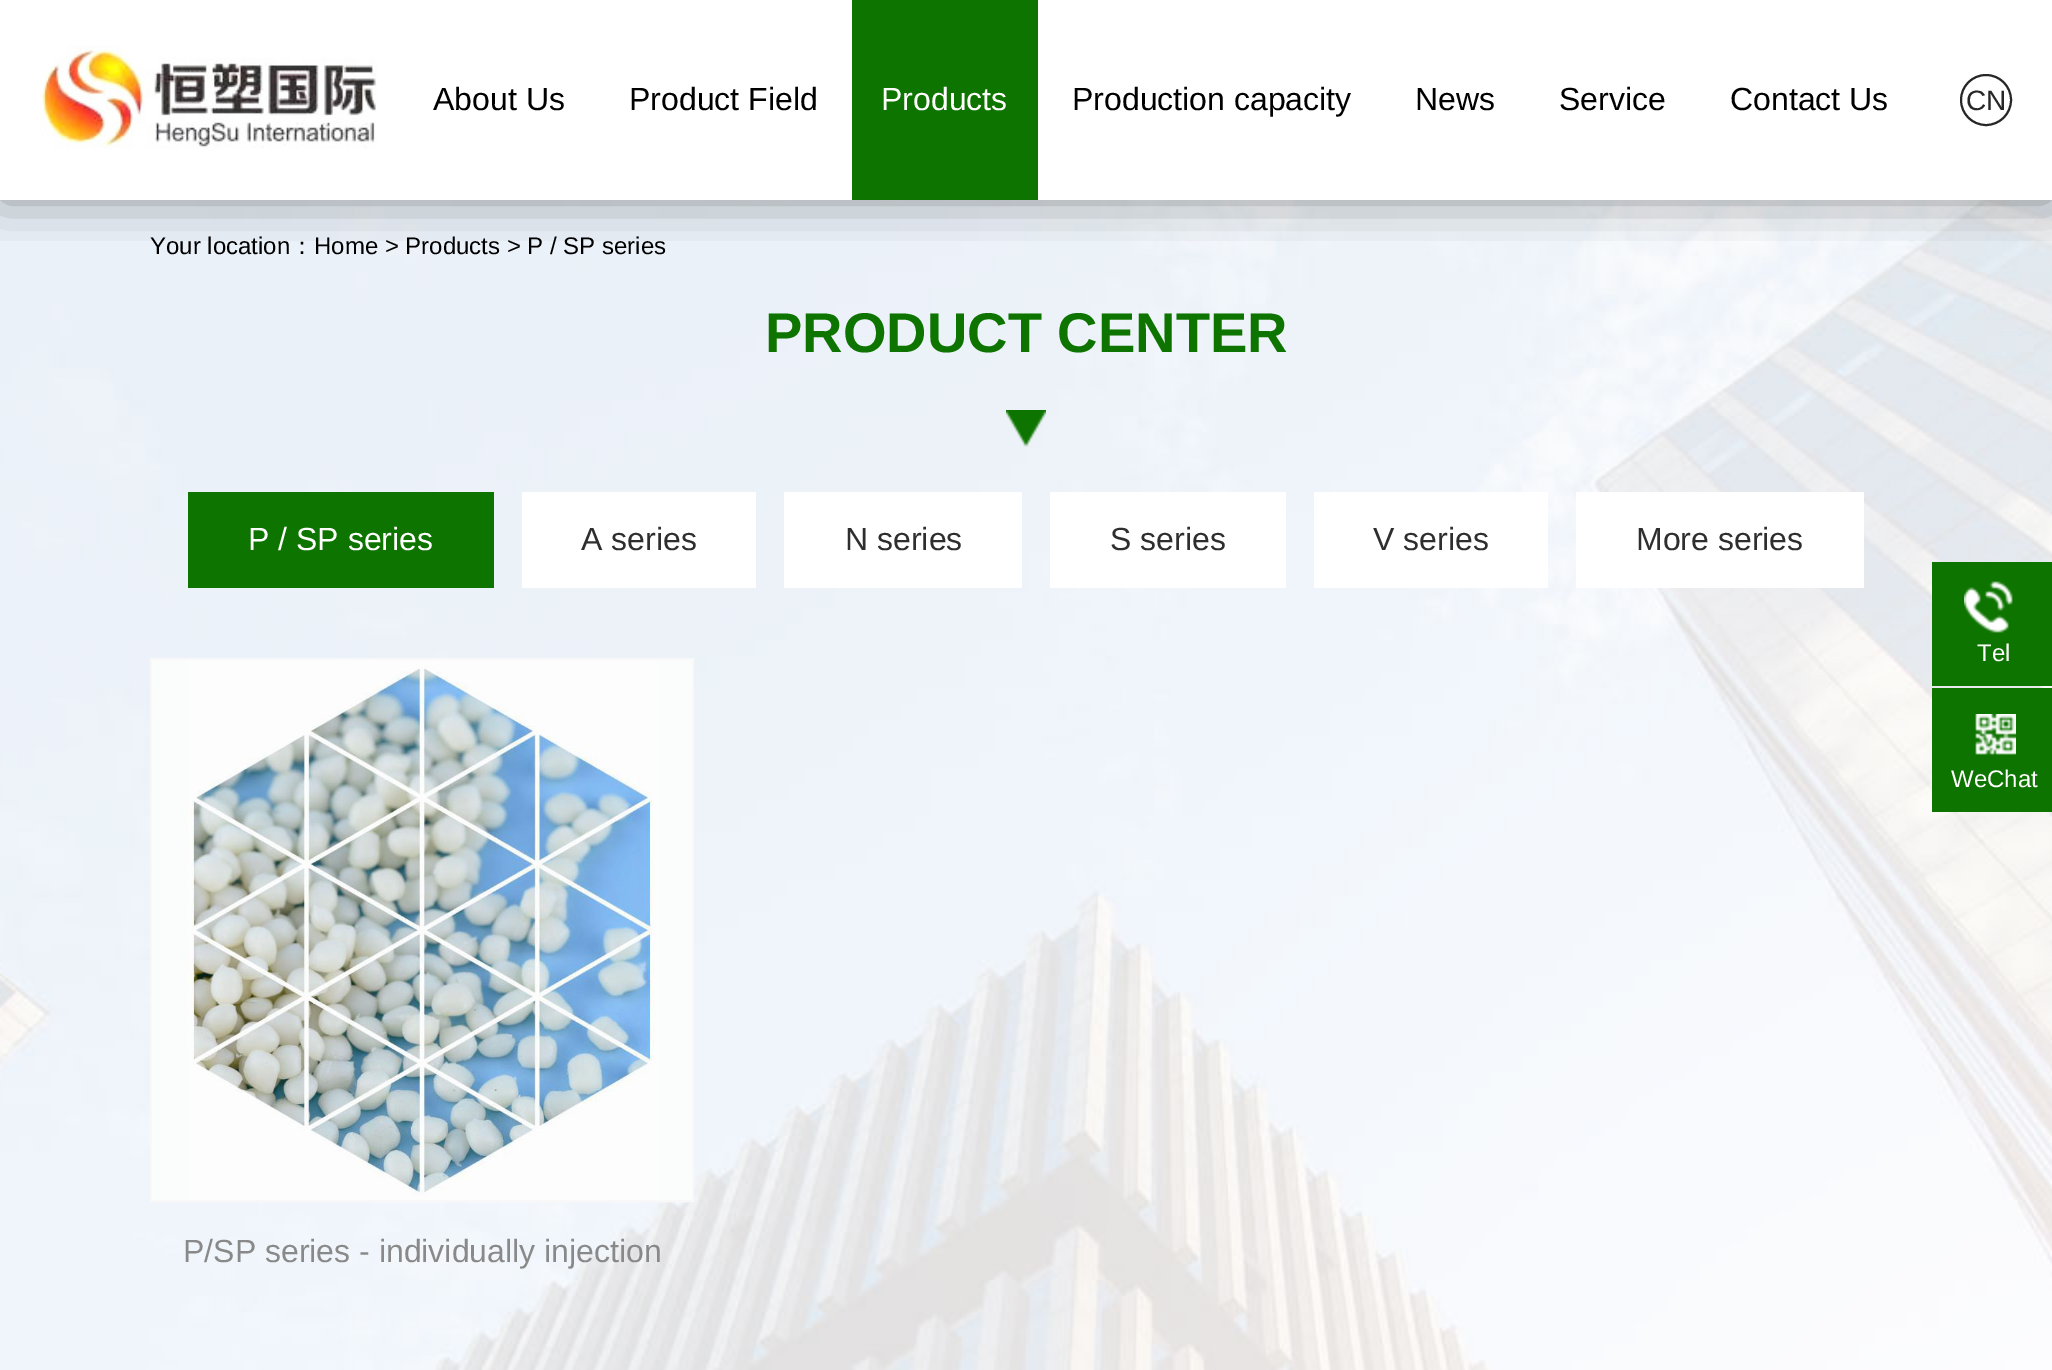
%!PS
<< /PageSize [2052 1370] /PageUsesTransparency true >> setpagedevice
/alpha { dup .setfillconstantalpha .setstrokeconstantalpha } def
/roundrect { 5 dict begin { /r /h /w /y /x } { exch def } forall
  x r add y moveto x w add y 2 copy h add r arct x w add y h add x 1 index r arct
  x y h add x y r arct x y 2 copy exch w add exch r arct closepath end } def
/shadow { 12 dict begin { /a /b /q /h /w /y /x } { exch def } forall gsave /was 0 def
  9 -2 -9 { dup b mul 4 div /e exch def 1 sub .425 mul 2.718 exch exp 1 add a .99 .min exch div /now exch def
    1 1 now sub 1 was sub div sub alpha /was now def
    w h .min e 2 mul add 0 gt { x e sub y e sub w e 2 mul add h e 2 mul add
      q e add b .6 mul add w h .min 2 div e add .min 0 .max roundrect fill } if } for grestore end } def
/picture { 5 dict begin { /h /w /y /x /name } { exch def } forall
  gsave x y translate w h scale
  w h 8 [w 0 0 h 0 0] name (r) file false 3 colorimage grestore end } def
0 .pushpdf14devicefilter
0 1370 translate 1 -1 scale
4 setmiterlimit
1 setgray
0 0 2052 1370 rectfill
(img2.rgb) 0 200 2052 1170 picture
gsave
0 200 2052 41 rectclip
0 setgray
0 0 2052 200 0 25 0.4 shadow
grestore
(img1.rgb) 40 45 337 104 picture
/LiberationSans-Regular [32 0 0 -32 0 0] selectfont
0 setgray
433 110 moveto (About Us) show
629 110 moveto (Product Field) show
0.051 0.455 0 setrgbcolor
852 0 186 200 rectfill
1 setgray
881 110 moveto (Products) show
0 setgray
1072 110 moveto (Production capacity) show
1415 110 moveto (News) show
1559 110 moveto (Service) show
1730 110 moveto (Contact Us) show
0.153 setgray
2 setlinewidth
newpath 1986 100 25 0 360 arc closepath stroke
/LiberationSans-Regular [28 0 0 -28 0 0] selectfont
1966 110 moveto (CN) show
/LiberationSans-Regular [24 0 0 -24 0 0] selectfont
0 setgray
150 254 moveto (Your location) show
/WenQuanYiZenHei-Medium [24 0 0 -24 0 0] selectfont
290 254 moveto (：) show
/LiberationSans-Regular [24 0 0 -24 0 0] selectfont
314 254 moveto (Home > Products > P / SP series) show
/LiberationSans-Bold [56 0 0 -56 0 0] selectfont
0.051 0.455 0 setrgbcolor
765 352 moveto (PRODUCT CENTER) show
(img3.rgb) 1006 410 40 37 picture
188 492 306 96 rectfill
/LiberationSans-Regular [32 0 0 -32 0 0] selectfont
1 setgray
248 550 moveto (P / SP series) show
522 492 234 96 rectfill
0.18 setgray
581 550 moveto (A series) show
1 setgray
784 492 238 96 rectfill
0.18 setgray
845 550 moveto (N series) show
1 setgray
1050 492 236 96 rectfill
0.18 setgray
1110 550 moveto (S series) show
1 setgray
1314 492 234 96 rectfill
0.18 setgray
1373 550 moveto (V series) show
1 setgray
1576 492 288 96 rectfill
0.18 setgray
1636 550 moveto (More series) show
0.973 setgray
151 659 542 542 rectstroke
(img4.rgb) 152 660 540 540 picture
0.537 setgray
183 1262 moveto (P/SP series - individually injection) show
0.051 0.455 0 setrgbcolor
1932 562 120 124 rectfill
(img5.rgb) 1964 581 49 52 picture
/LiberationSans-Regular [24 0 0 -24 0 0] selectfont
1 setgray
1977 661 moveto (Tel) show
0.051 0.455 0 setrgbcolor
1932 688 120 124 rectfill
(img6.rgb) 1975 714 41 41 picture
1 setgray
1951 787 moveto (WeChat) show
.poppdf14devicefilter showpage
